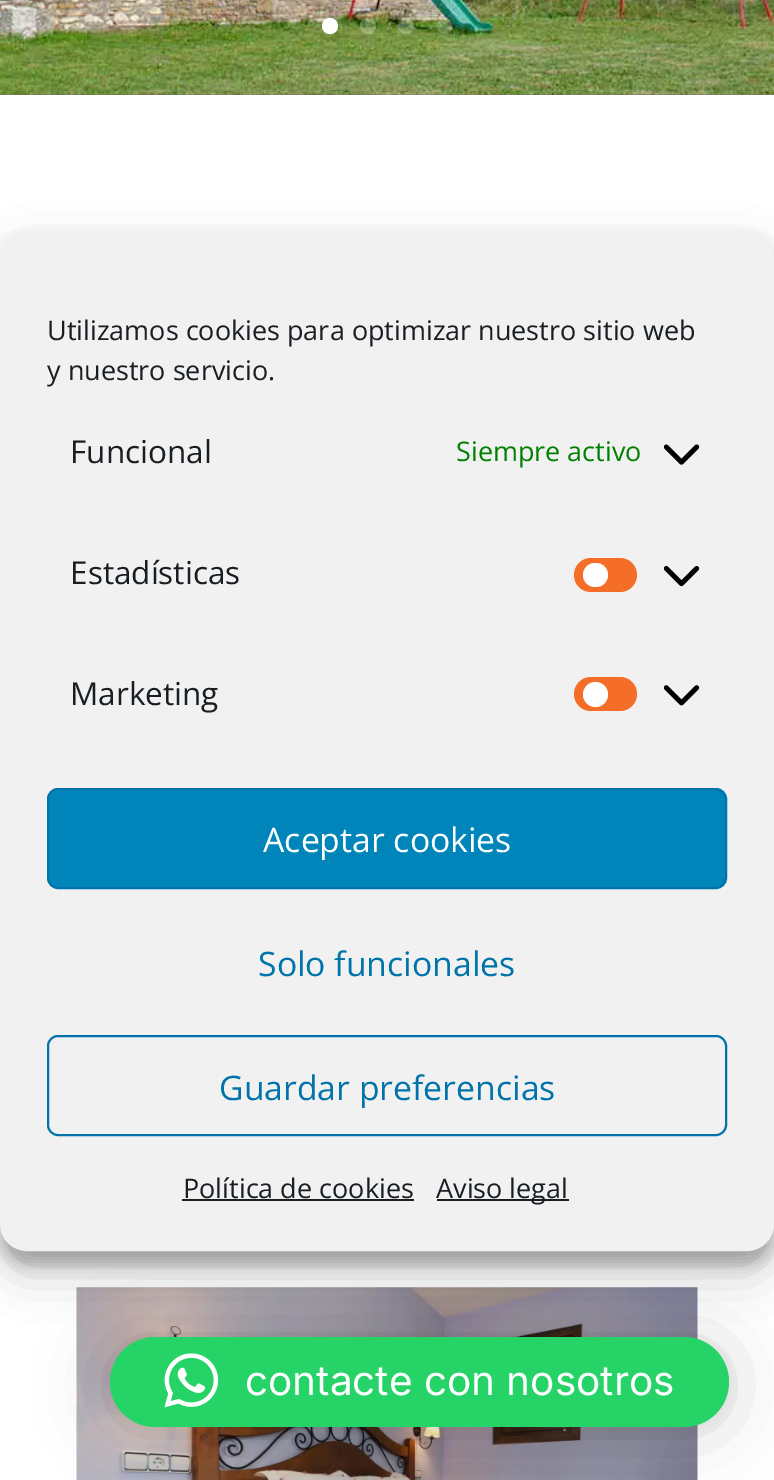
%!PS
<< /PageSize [774 1480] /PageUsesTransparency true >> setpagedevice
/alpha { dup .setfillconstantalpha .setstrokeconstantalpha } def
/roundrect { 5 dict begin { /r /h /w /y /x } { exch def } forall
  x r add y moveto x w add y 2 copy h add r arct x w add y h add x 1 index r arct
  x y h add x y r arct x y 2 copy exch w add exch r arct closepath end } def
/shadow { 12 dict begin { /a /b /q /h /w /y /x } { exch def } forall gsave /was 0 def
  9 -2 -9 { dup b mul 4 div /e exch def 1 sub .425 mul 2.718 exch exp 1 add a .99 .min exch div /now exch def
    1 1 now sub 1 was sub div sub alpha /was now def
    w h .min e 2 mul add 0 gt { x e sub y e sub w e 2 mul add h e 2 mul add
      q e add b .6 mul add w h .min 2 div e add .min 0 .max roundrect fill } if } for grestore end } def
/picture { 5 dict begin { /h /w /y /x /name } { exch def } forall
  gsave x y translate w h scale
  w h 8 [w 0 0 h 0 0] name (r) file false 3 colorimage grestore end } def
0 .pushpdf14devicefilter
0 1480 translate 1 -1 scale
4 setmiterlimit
0.498 0.459 0.392 setrgbcolor
0 0 774 1480 rectfill
(img1.rgb) 0 0 774 95 picture
1 setgray
newpath 330 26 8 0 360 arc closepath fill
0.25 alpha
newpath 368 26 8 0 360 arc closepath fill
newpath 406 26 8 0 360 arc closepath fill
437 18 15 16 7.5 roundrect fill
1 alpha
0 95 774 1385 rectfill
(img2.rgb) 76 1287 622 193 picture
0 setgray
0 243 774 1022 27 7 0.23 shadow
0 252 774 1022 27 22.5 0.19 shadow
0.945 setgray
1 231 772 1019 26 roundrect gsave fill grestore
2 setlinewidth
stroke
/OpenSans-Regular [27 0 0 -27 0 0] selectfont
0.098 0.118 0.137 setrgbcolor
47 340 moveto (Utilizamos cookies para optimizar nuestro sitio web) show
47 380 moveto (y nuestro servicio.) show
/OpenSans-Regular [31.5 0 0 -31.5 0 0] selectfont
70 463 moveto (Funcional) show
/OpenSans-Regular [27 0 0 -27 0 0] selectfont
0 0.502 0 setrgbcolor
456 461 moveto (Siempre activo) show
(img3.rgb) 664 444 36 21 picture
/OpenSans-Regular [31.5 0 0 -31.5 0 0] selectfont
0.098 0.118 0.137 setrgbcolor
70 584 moveto (Estadísticas) show
0.961 0.431 0.157 setrgbcolor
574 558 63 34 17 roundrect fill
1 setgray
583 563 25 24 12 roundrect fill
(img4.rgb) 664 566 36 21 picture
0.098 0.118 0.137 setrgbcolor
70 705 moveto (Marketing) show
0.961 0.431 0.157 setrgbcolor
574 677 63 34 17 roundrect fill
1 setgray
newpath 595.5 694.5 12.5 0 360 arc closepath fill
(img5.rgb) 664 685 36 21 picture
0 0.522 0.729 setrgbcolor
48 789 678 99 10 roundrect gsave fill grestore
0 0.451 0.667 setrgbcolor
stroke
/OpenSans-Regular [33.75 0 0 -33.75 0 0] selectfont
1 setgray
263 852 moveto (Aceptar cookies) show
0 0.451 0.667 setrgbcolor
258 976 moveto (Solo funcionales) show
48 1036 678 99 10 roundrect stroke
219 1100 moveto (Guardar preferencias) show
/OpenSans-Regular [27 0 0 -27 0 0] selectfont
0.098 0.118 0.137 setrgbcolor
183 1198 moveto (Política de cookies) show
182 1199 232 2 rectfill
437 1199 132 2 rectfill
436 1198 moveto (Aviso legal) show
0 setgray
110 1341 619 90 45 36 0.16 shadow
110 1339 619 90 45 7 0.06 shadow
0.145 0.827 0.4 setrgbcolor
110 1337 619 90 45 roundrect fill
(img6.rgb) 164 1353 55 55 picture
/Inter-Regular [40.5 0 0 -40.5 0 0] selectfont
1 setgray
245 1395 moveto (contacte con nosotros) show
.poppdf14devicefilter showpage
